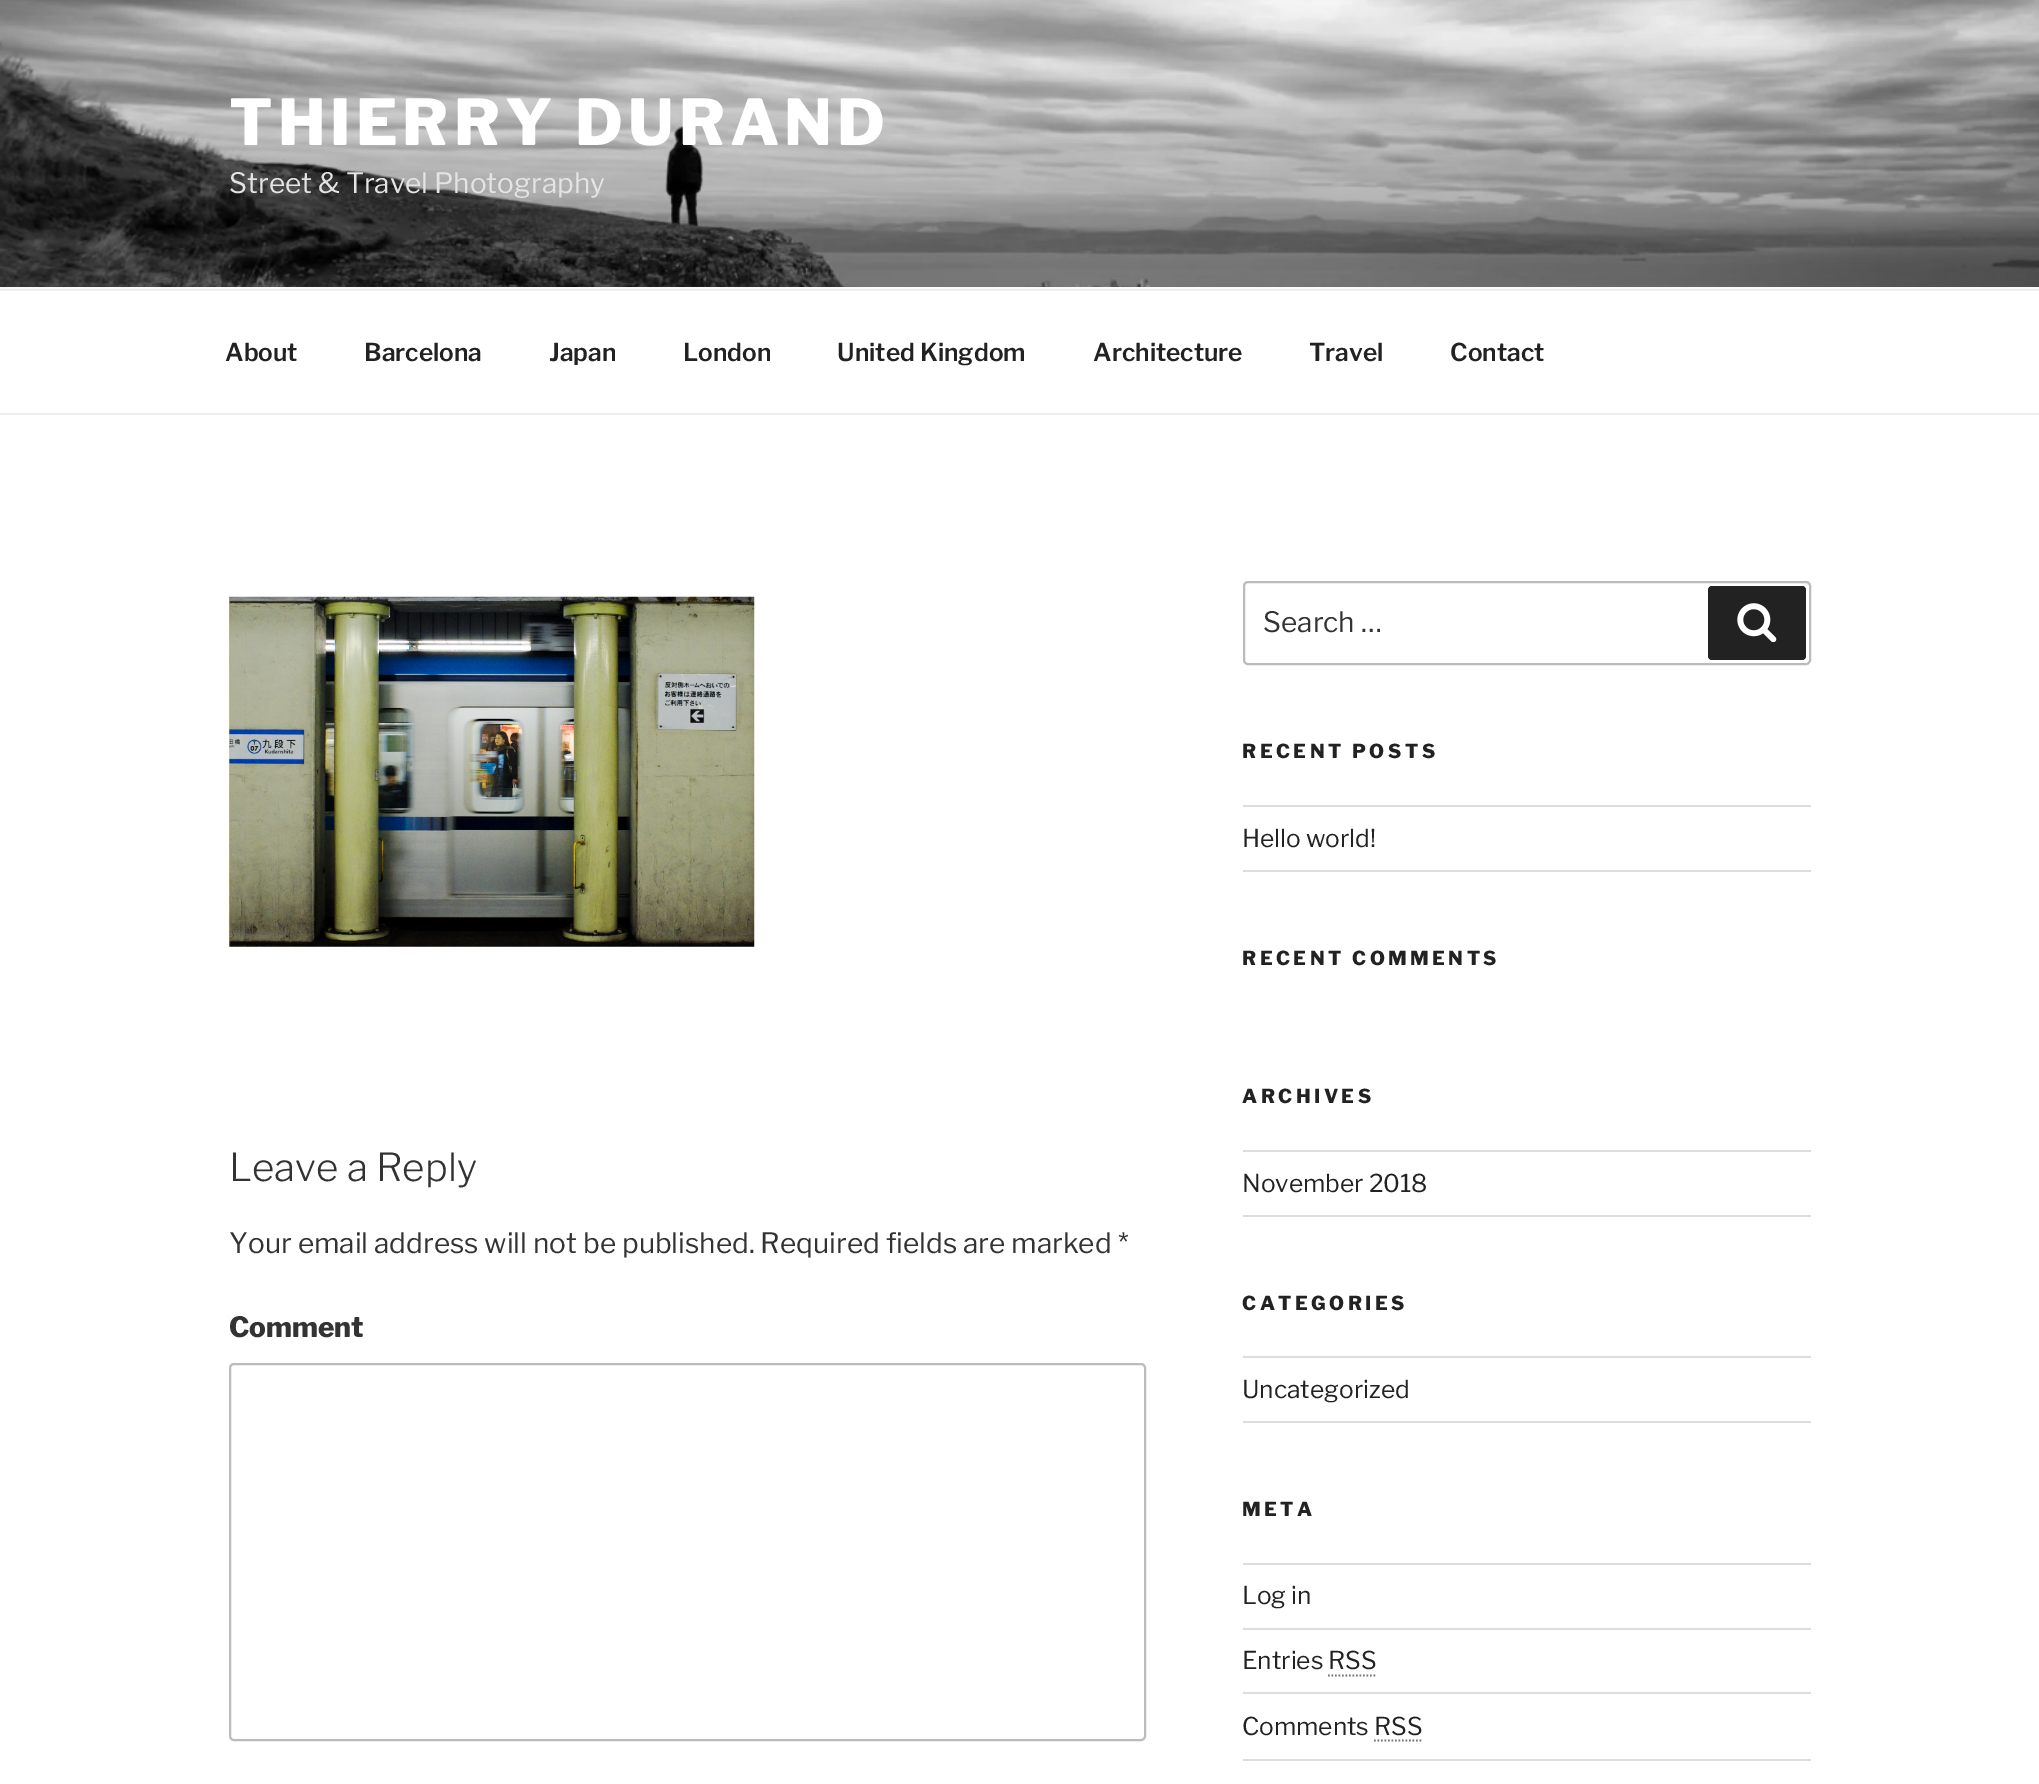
%!PS
<< /PageSize [2039 1784] >> setpagedevice
/roundrect { 5 dict begin { /r /h /w /y /x } { exch def } forall
  x r add y moveto x w add y 2 copy h add r arct x w add y h add x 1 index r arct
  x y h add x y r arct x y 2 copy exch w add exch r arct closepath end } def
/picture { 5 dict begin { /h /w /y /x /name } { exch def } forall
  gsave x y translate w h scale
  w h 8 [w 0 0 h 0 0] name (r) file false 3 colorimage grestore end } def
0 1784 translate 1 -1 scale
4 setmiterlimit
1 setgray
0 0 2039 1784 rectfill
0.98 setgray
0 287 2039 2 rectfill
(img1.rgb) 0 0 2039 287 picture
/LibreFranklin-ExtraBold [63 0 0 -63 0 0] selectfont
1 setgray
229 145 moveto 5 0 (THIERRY DURAND) ashow
/LibreFranklin-Regular [28 0 0 -28 0 0] selectfont
0.894 setgray
229 193 moveto (Street & Travel Photography) show
0.933 setgray
0 289 2039 2 rectfill
0 413 2039 2 rectfill
/LibreFranklin-SemiBold [24.5 0 0 -24.5 0 0] selectfont
0.133 setgray
225 361 moveto (About) show
364 361 moveto (Barcelona) show
549 361 moveto (Japan) show
683 361 moveto (London) show
837 361 moveto (United Kingdom) show
1093 361 moveto (Architecture) show
1309 361 moveto (Travel) show
1450 361 moveto (Contact) show
(img2.rgb) 229 596 526 351 picture
/LibreFranklin-Light [38.5 0 0 -38.5 0 0] selectfont
0.2 setgray
229 1181 moveto (Leave a Reply) show
/LibreFranklin-Regular [28 0 0 -28 0 0] selectfont
229 1253 moveto (Your email address will not be published. Required fields are marked *) show
/LibreFranklin-ExtraBold [28 0 0 -28 0 0] selectfont
229 1337 moveto (Comment) show
0.733 setgray
2 setlinewidth
230 1364 915 376 4 roundrect stroke
1244 582 566 82 4 roundrect stroke
/LibreFranklin-Regular [28 0 0 -28 0 0] selectfont
0.2 setgray
1263 632 moveto (Search …) show
0.133 setgray
1708 586 98 74 4 roundrect fill
(img3.rgb) 1737 603 40 39 picture
/LibreFranklin-ExtraBold [19.25 0 0 -19.25 0 0] selectfont
1242 758 moveto 3.5 0 (RECENT POSTS) ashow
0.867 setgray
1243 805 568 2 rectfill
1243 870 568 2 rectfill
/LibreFranklin-Regular [24.5 0 0 -24.5 0 0] selectfont
0.133 setgray
1242 847 moveto (Hello world!) show
/LibreFranklin-ExtraBold [19.25 0 0 -19.25 0 0] selectfont
1242 965 moveto 3.5 0 (RECENT COMMENTS) ashow
1242 1103 moveto 3.5 0 (ARCHIVES) ashow
0.867 setgray
1243 1150 568 2 rectfill
1243 1215 568 2 rectfill
/LibreFranklin-Regular [24.5 0 0 -24.5 0 0] selectfont
0.133 setgray
1242 1192 moveto (November 2018) show
/LibreFranklin-ExtraBold [19.25 0 0 -19.25 0 0] selectfont
1242 1310 moveto 3.5 0 (CATEGORIES) ashow
0.867 setgray
1243 1356 568 2 rectfill
1243 1421 568 2 rectfill
/LibreFranklin-Regular [24.5 0 0 -24.5 0 0] selectfont
0.133 setgray
1242 1398 moveto (Uncategorized) show
/LibreFranklin-ExtraBold [19.25 0 0 -19.25 0 0] selectfont
1242 1516 moveto 3.5 0 (META) ashow
0.867 setgray
1243 1563 568 2 rectfill
1243 1628 568 2 rectfill
/LibreFranklin-Regular [24.5 0 0 -24.5 0 0] selectfont
0.133 setgray
1242 1604 moveto (Log in) show
0.867 setgray
1243 1692 568 2 rectfill
0.133 setgray
1242 1669 moveto (Entries RSS) show
0.463 setgray
1.8 setlinewidth
[1.75 1.75] 0 setdash
newpath 1328 1675.5 moveto 1377 1675.5 lineto stroke
0.867 setgray
1243 1759 568 2 rectfill
0.133 setgray
1242 1735 moveto (Comments RSS) show
0.463 setgray
newpath 1374 1740.5 moveto 1423 1740.5 lineto stroke
showpage
